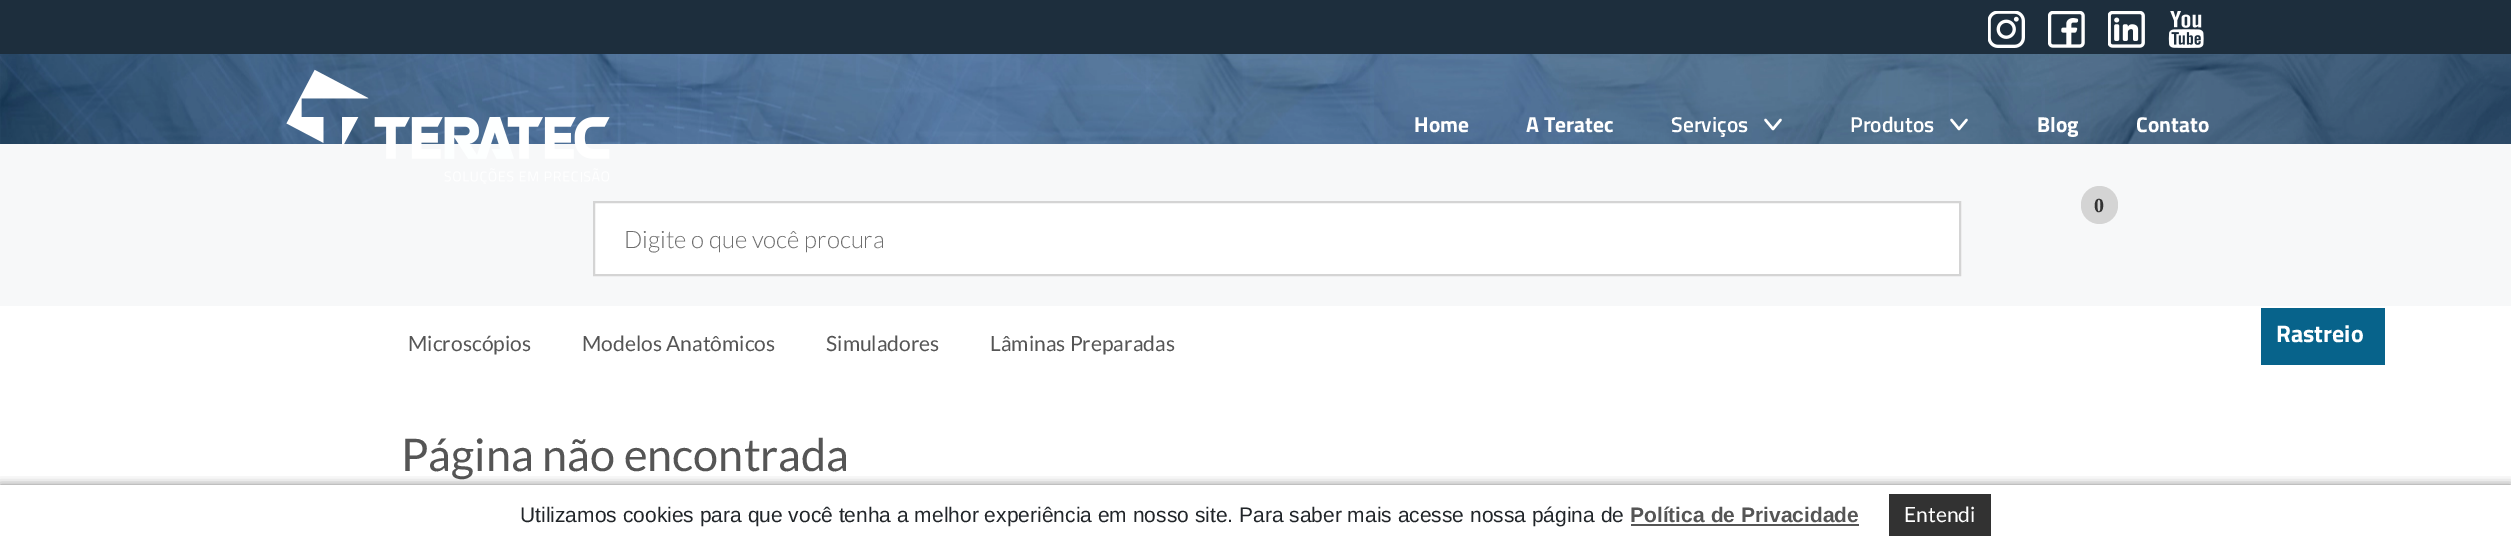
%!PS
<< /PageSize [2511 544] /PageUsesTransparency true >> setpagedevice
/alpha { dup .setfillconstantalpha .setstrokeconstantalpha } def
/roundrect { 5 dict begin { /r /h /w /y /x } { exch def } forall
  x r add y moveto x w add y 2 copy h add r arct x w add y h add x 1 index r arct
  x y h add x y r arct x y 2 copy exch w add exch r arct closepath end } def
/shadow { 12 dict begin { /a /b /q /h /w /y /x } { exch def } forall gsave /was 0 def
  9 -2 -9 { dup b mul 4 div /e exch def 1 sub .425 mul 2.718 exch exp 1 add a .99 .min exch div /now exch def
    1 1 now sub 1 was sub div sub alpha /was now def
    w h .min e 2 mul add 0 gt { x e sub y e sub w e 2 mul add h e 2 mul add
      q e add b .6 mul add w h .min 2 div e add .min 0 .max roundrect fill } if } for grestore end } def
/picture { 5 dict begin { /h /w /y /x /name } { exch def } forall
  gsave x y translate w h scale
  w h 8 [w 0 0 h 0 0] name (r) file false 3 colorimage grestore end } def
0 .pushpdf14devicefilter
0 544 translate 1 -1 scale
4 setmiterlimit
1 setgray
0 0 2511 544 rectfill
(img1.rgb) 0 54 2511 90 picture
0.114 0.18 0.239 setrgbcolor
0 0 2511 54 rectfill
(img2.rgb) 1988 11 37 37 picture
(img3.rgb) 2048 11 37 37 picture
(img4.rgb) 2108 11 37 37 picture
(img5.rgb) 2168 11 36 37 picture
0.969 0.973 0.976 setrgbcolor
0 144 2511 162 rectfill
(img6.rgb) 286 69 324 115 picture
/TitilliumWeb-Bold [21.5 0 0 -21.5 0 0] selectfont
1 setgray
1414 132 moveto (Home) show
1526 132 moveto (A Teratec) show
/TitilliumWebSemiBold-SemiBold [21.5 0 0 -21.5 0 0] selectfont
1671 132 moveto (Serviços) show
2.4 setlinewidth
1 setlinecap
1 setlinejoin
newpath 1765.5 120 moveto 1773 129 lineto 1780.5 120 lineto stroke
1850 132 moveto (Produtos) show
newpath 1951.5 120 moveto 1959 129 lineto 1966.5 120 lineto stroke
/TitilliumWeb-Bold [21.5 0 0 -21.5 0 0] selectfont
2037 132 moveto (Blog) show
2136 132 moveto (Contato) show
0.831 setgray
2081 186 37 38 18.5 roundrect fill
/LiberationSerif-Bold [20 0 0 -20 0 0] selectfont
0.196 setgray
2094 212 moveto (0) show
1 setgray
newpath 594 202 moveto 1960 202 lineto 1960 275 lineto 594 275 lineto closepath gsave fill grestore
0.831 setgray
2 setlinewidth
0 setlinecap
0 setlinejoin
stroke
/Lato-Light [24 0 0 -24 0 0] selectfont
0.427 setgray
624 248 moveto (Digite o que você procura) show
0.027 0.388 0.545 setrgbcolor
2261 308 124 57 rectfill
/TitilliumWeb-Bold [24 0 0 -24 0 0] selectfont
1 setgray
2276 342 moveto (Rastreio) show
/Lato-Regular [21 0 0 -21 0 0] selectfont
0.333 setgray
408 351 moveto (Microscópios) show
582 351 moveto (Modelos Anatômicos) show
826 351 moveto (Simuladores) show
990 351 moveto (Lâminas Preparadas) show
/Lato-Regular [45 0 0 -45 0 0] selectfont
401 471 moveto (Página não encontrada) show
gsave
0 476 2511 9 rectclip
0 setgray
0 485 2511 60 0 5 0.5 shadow
grestore
/LiberationSans-Regular [21 0 0 -21 0 0] selectfont
0.129 0.145 0.161 setrgbcolor
520 522 moveto (Utilizamos cookies para que você tenha a melhor experiência em nosso site. Para saber mais acesse nossa página de) show
/LiberationSans-Bold [21 0 0 -21 0 0] selectfont
0.333 setgray
1630 522 moveto (Política de Privacidade) show
1631 524 228 2 rectfill
0.196 setgray
1889 494 102 42 rectfill
/Lato-Regular [21 0 0 -21 0 0] selectfont
1 setgray
1904 522 moveto (Entendi) show
.poppdf14devicefilter showpage
